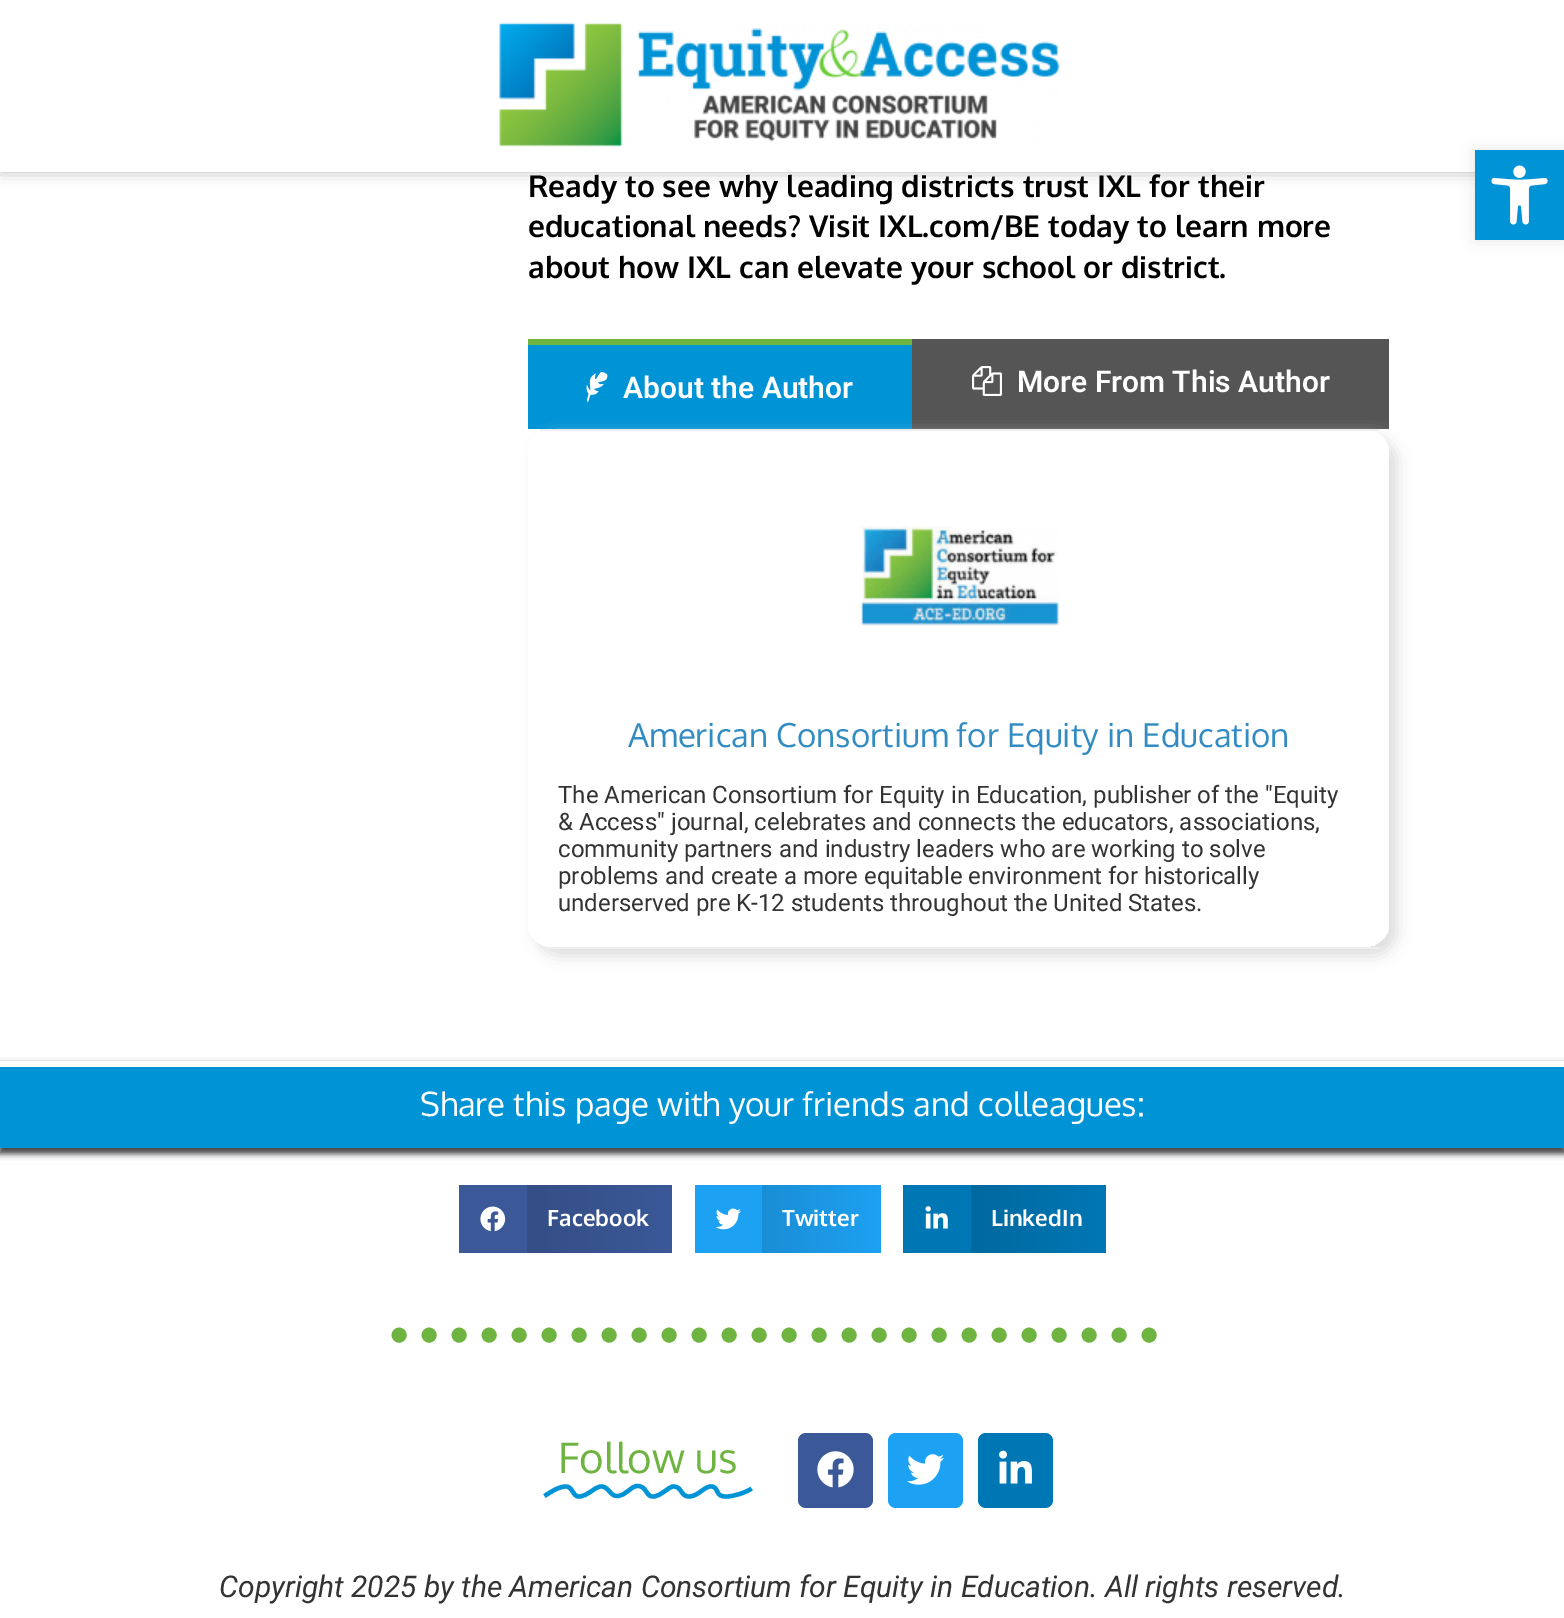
%!PS
<< /PageSize [1564 1618] /PageUsesTransparency true >> setpagedevice
/alpha { dup .setfillconstantalpha .setstrokeconstantalpha } def
/roundrect { 5 dict begin { /r /h /w /y /x } { exch def } forall
  x r add y moveto x w add y 2 copy h add r arct x w add y h add x 1 index r arct
  x y h add x y r arct x y 2 copy exch w add exch r arct closepath end } def
/shadow { 12 dict begin { /a /b /q /h /w /y /x } { exch def } forall gsave /was 0 def
  9 -2 -9 { dup b mul 4 div /e exch def 1 sub .425 mul 2.718 exch exp 1 add a .99 .min exch div /now exch def
    1 1 now sub 1 was sub div sub alpha /was now def
    w h .min e 2 mul add 0 gt { x e sub y e sub w e 2 mul add h e 2 mul add
      q e add b .6 mul add w h .min 2 div e add .min 0 .max roundrect fill } if } for grestore end } def
/picture { 5 dict begin { /h /w /y /x /name } { exch def } forall
  gsave x y translate w h scale
  w h 8 [w 0 0 h 0 0] name (r) file false 3 colorimage grestore end } def
0 .pushpdf14devicefilter
0 1618 translate 1 -1 scale
4 setmiterlimit
1 setgray
0 0 1564 1618 rectfill
0 setgray
0 0 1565 171 0 7.5 0.3 shadow
1 setgray
0 0 1564 170 rectfill
0 170 1475 2 rectfill
(img1.rgb) 499 22 561 125 picture
/Oxygen-Bold [30 0 0 -30 0 0] selectfont
0 setgray
528 197 moveto (Ready to see why leading districts trust IXL for their) show
528 237 moveto (educational needs? Visit IXL.com/BE today to learn more) show
528 278 moveto (about how IXL can elevate your school or district.) show
0 0.576 0.839 setrgbcolor
528 345 384 84 rectfill
0.435 0.706 0.255 setrgbcolor
528 339 384 6 rectfill
(img2.rgb) 586 372 22 30 picture
/Roboto-SemiBold [30 0 0 -30 0 0] selectfont
1 setgray
623 398 moveto (About the Author) show
0.333 setgray
912 339 477 90 rectfill
(img3.rgb) 972 366 30 30 picture
1 setgray
1017 392 moveto (More From This Author) show
gsave
newpath 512 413 moveto 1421 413 lineto 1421 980 lineto 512 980 lineto closepath 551 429 moveto 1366 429 lineto 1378.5 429 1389 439.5 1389 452 curveto 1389 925 lineto 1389 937.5 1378.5 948 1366 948 curveto 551 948 lineto 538.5 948 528 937.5 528 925 curveto 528 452 lineto 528 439.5 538.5 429 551 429 curveto closepath eoclip newpath
0.867 setgray
536 437 861 519 23 7.5 1 shadow
grestore
newpath 550 430 moveto 1366 430 lineto 1379 430 1389 440 1389 452 curveto 1389 926 lineto 1389 937 1379 946 1366 946 curveto 550 946 lineto 538 946 528 937 528 926 curveto 528 452 lineto 528 440 538 430 550 430 curveto closepath fill
0.933 setgray
540 429 839 2 rectfill
540 947 839 2 rectfill
(img4.rgb) 860 526 200 100 picture
/Oxygen-Regular [33 0 0 -33 0 0] selectfont
0.196 0.549 0.757 setrgbcolor
628 747 moveto (American Consortium for Equity in Education) show
/Roboto-Regular [24 0 0 -24 0 0] selectfont
0.2 setgray
558 803 moveto (The American Consortium for Equity in Education, publisher of the "Equity) show
558 830 moveto (& Access" journal, celebrates and connects the educators, associations,) show
558 857 moveto (community partners and industry leaders who are working to solve) show
558 884 moveto (problems and create a more equitable environment for historically) show
558 911 moveto (underserved pre K-12 students throughout the United States.) show
gsave
newpath 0 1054 moveto 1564 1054 lineto 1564 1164 lineto 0 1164 lineto closepath 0 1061 moveto 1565 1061 lineto 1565 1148 lineto 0 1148 lineto closepath eoclip newpath
0.267 setgray
-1 1064 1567 90 0 3 1 shadow
grestore
0 0.576 0.839 setrgbcolor
0 1067 1564 81 rectfill
/Oxygen-Regular [33 0 0 -33 0 0] selectfont
1 setgray
420 1116 moveto (Share this page with your friends and colleagues:) show
0.231 0.349 0.596 setrgbcolor
459 1185 68 68 rectfill
(img5.rgb) 480 1206 26 26 picture
gsave newpath 527 1185 moveto 672 1185 lineto 672 1253 lineto 527 1253 lineto closepath clip newpath
<< /ShadingType 2 /ColorSpace /DeviceRGB /Coords [527 1219 672 1219] /Extend [true true] /Function << /FunctionType 2 /Domain [0 1] /C0 [0.204 0.306 0.525] /C1 [0.231 0.349 0.596] /N 1 >> >> shfill grestore
/Oxygen-Bold [22.5 0 0 -22.5 0 0] selectfont
1 setgray
547 1226 moveto (Facebook) show
0.114 0.631 0.949 setrgbcolor
695 1185 67 68 rectfill
(img6.rgb) 715 1208 26 22 picture
gsave newpath 762 1185 moveto 881 1185 lineto 881 1253 lineto 762 1253 lineto closepath clip newpath
<< /ShadingType 2 /ColorSpace /DeviceRGB /Coords [762 1219 881 1219] /Extend [true true] /Function << /FunctionType 2 /Domain [0 1] /C0 [0.102 0.557 0.835] /C1 [0.114 0.631 0.949] /N 1 >> >> shfill grestore
1 setgray
782 1226 moveto (Twitter) show
0 0.467 0.71 setrgbcolor
903 1185 68 68 rectfill
(img7.rgb) 925 1206 23 23 picture
gsave newpath 971 1185 moveto 1106 1185 lineto 1106 1253 lineto 971 1253 lineto closepath clip newpath
<< /ShadingType 2 /ColorSpace /DeviceRGB /Coords [971 1219 1106 1219] /Extend [true true] /Function << /FunctionType 2 /Domain [0 1] /C0 [0 0.412 0.624] /C1 [0 0.467 0.71] /N 1 >> >> shfill grestore
1 setgray
991 1226 moveto (LinkedIn) show
0 setgray
1475 150 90 90 0 7.5 0.1 shadow
0 0.576 0.839 setrgbcolor
1475 150 89 90 rectfill
(img8.rgb) 1491 165 57 60 picture
0.435 0.706 0.255 setrgbcolor
15 setlinewidth
1 setlinecap
[0 30] 0 setdash
newpath 399 1335 moveto 1165.5 1335 lineto stroke
/Oxygen-Regular [42 0 0 -42 0 0] selectfont
558 1473 moveto (Follow us) show
0 0.576 0.839 setrgbcolor
4.3 setlinewidth
0 setlinecap
[] 0 setdash
newpath 544.5 1496 moveto 551.5 1491.5 558.5 1486.5 566 1486.5 curveto 572.5 1486.5 573 1496.5 578.5 1496.5 curveto 588.5 1496.5 594 1486.5 601.5 1486.5 curveto 608.5 1486.5 610 1496 617 1496 curveto 626 1496 630.5 1486 637.5 1486 curveto 647 1486 645.5 1496.5 653 1496.5 curveto 661 1496.5 668.5 1486.5 673.5 1486.5 curveto 682 1486.5 680.5 1496.5 689 1496.5 curveto 698.5 1496.5 704.5 1485.5 712 1486.5 curveto 719 1487.5 715 1497 726 1496.5 curveto 733 1496.5 745.5 1493 751.5 1488.5 curveto stroke
0.231 0.349 0.596 setrgbcolor
798 1433 75 75 8 roundrect fill
(img9.rgb) 817 1451 37 37 picture
0.114 0.631 0.949 setrgbcolor
888 1433 75 75 8 roundrect fill
(img10.rgb) 907 1454 38 31 picture
0 0.467 0.71 setrgbcolor
978 1433 75 75 8 roundrect fill
(img11.rgb) 999 1450 33 34 picture
/Roboto-Italic [30 0 0 -30 0 0] selectfont
0.2 setgray
219 1597 moveto (Copyright 2025 by the American Consortium for Equity in Education. All rights reserved.) show
.poppdf14devicefilter showpage
